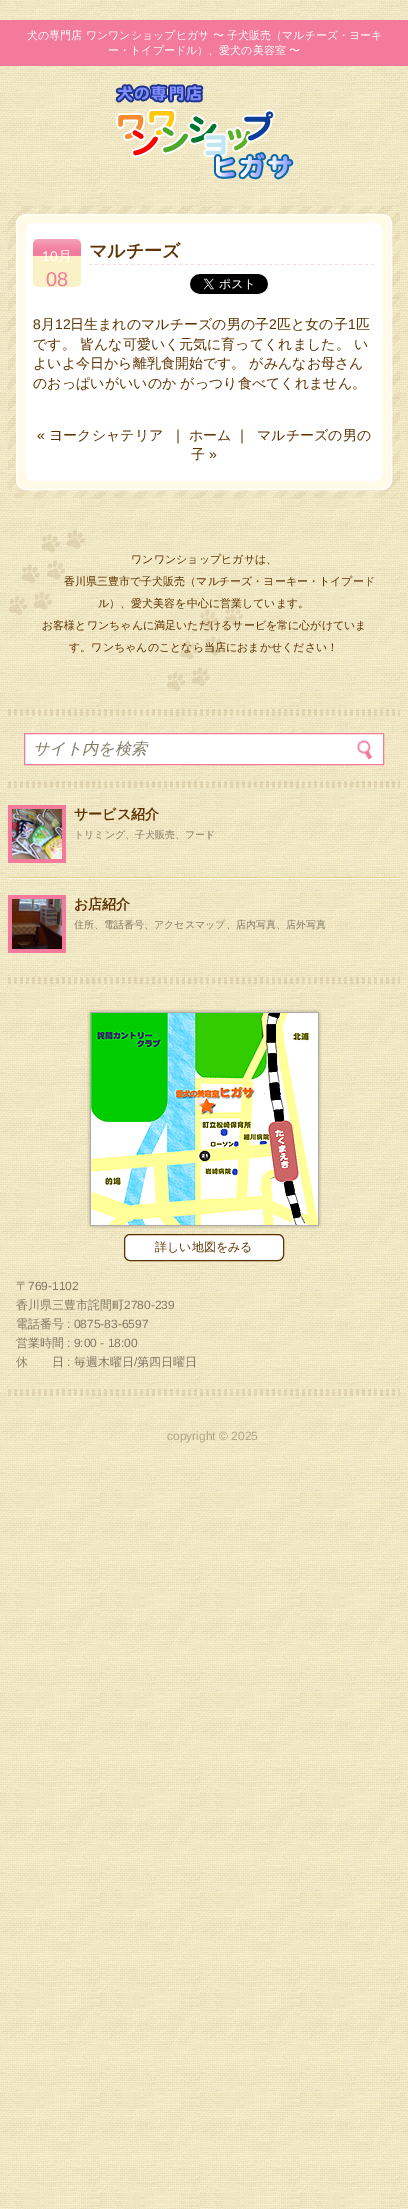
%!PS
<< /PageSize [408 2209] >> setpagedevice
/roundrect { 5 dict begin { /r /h /w /y /x } { exch def } forall
  x r add y moveto x w add y 2 copy h add r arct x w add y h add x 1 index r arct
  x y h add x y r arct x y 2 copy exch w add exch r arct closepath end } def
/picture { 5 dict begin { /h /w /y /x /name } { exch def } forall
  gsave x y translate w h scale
  w h 8 [w 0 0 h 0 0] name (r) file false 3 colorimage grestore end } def
0 2209 translate 1 -1 scale
4 setmiterlimit
1 setgray
0 0 408 2209 rectfill
(img1.rgb) 0 0 408 2209 picture
0.957 0.478 0.612 setrgbcolor
0 20 408 46 rectfill
/WenQuanYiZenHei-Medium [11 0 0 -11 0 0] selectfont
1 setgray
27 39 moveto (犬の専門店 ワンワンショップヒガサ 〜 子犬販売（マルチーズ・ヨーキ) show
108 54 moveto (ー・トイプードル）、愛犬の美容室 〜) show
(img2.rgb) 115 84 179 96 picture
(img3.rgb) 8 206 392 292 picture
1 0.984 0.91 setrgbcolor
16.5 214.5 375 275 9.5 roundrect gsave fill grestore
1 setgray
stroke
25 223 358 258 10 roundrect fill
(img4.rgb) 33 239 48 48 picture
/LiberationSans-Regular [14 0 0 -14 0 0] selectfont
42 261 moveto (10) show
/WenQuanYiZenHei-Medium [14 0 0 -14 0 0] selectfont
58 261 moveto (月) show
/LiberationSans-Regular [20 0 0 -20 0 0] selectfont
0.957 0.478 0.612 setrgbcolor
46 286 moveto (08) show
(img5.rgb) 89 264 285 1 picture
/WenQuanYiZenHei-Bold [18 0 0 -18 0 0] selectfont
0.365 0.2 0.004 setrgbcolor
89 257 moveto (マルチーズ) show
(img6.rgb) 190 274 78 20 picture
/LiberationSans-Regular [14 0 0 -14 0 0] selectfont
33 329 moveto (8) show
/WenQuanYiZenHei-Medium [14 0 0 -14 0 0] selectfont
41 329 moveto (月) show
/LiberationSans-Regular [14 0 0 -14 0 0] selectfont
55 329 moveto (12) show
/WenQuanYiZenHei-Medium [14 0 0 -14 0 0] selectfont
70 329 moveto (日生まれのマルチーズの男の子) show
/LiberationSans-Regular [14 0 0 -14 0 0] selectfont
269 329 moveto (2) show
/WenQuanYiZenHei-Medium [14 0 0 -14 0 0] selectfont
277 329 moveto (匹と女の子) show
/LiberationSans-Regular [14 0 0 -14 0 0] selectfont
348 329 moveto (1) show
/WenQuanYiZenHei-Medium [14 0 0 -14 0 0] selectfont
356 329 moveto (匹) show
33 349 moveto (です。 皆んな可愛いく元気に育ってくれました。 い) show
33 368 moveto (よいよ今日から離乳食開始です。 がみんなお母さん) show
33 388 moveto (のおっぱいがいいのか がっつり食べてくれません。) show
/LiberationSans-Regular [14 0 0 -14 0 0] selectfont
37 440 moveto («) show
/WenQuanYiZenHei-Medium [14 0 0 -14 0 0] selectfont
49 440 moveto (ヨークシャテリア) show
171 440 moveto (｜ ホーム) show
235 440 moveto (｜) show
257 440 moveto (マルチーズの男の) show
191 459 moveto (子) show
/LiberationSans-Regular [14 0 0 -14 0 0] selectfont
209 459 moveto (») show
(img7.rgb) 9 530 234 161 picture
/WenQuanYiZenHei-Medium [11 0 0 -11 0 0] selectfont
131 563 moveto (ワンワンショップヒガサは、) show
64 585 moveto (香川県三豊市で子犬販売（マルチーズ・ヨーキー・トイプード) show
98 607 moveto (ル）、愛犬美容を中心に営業しています。) show
42 629 moveto (お客様とワンちゃんに満足いただけるサービを常に心がけていま) show
69 651 moveto (す。ワンちゃんのことなら当店におまかせください！) show
(img8.rgb) 8 709 392 7 picture
1 setgray
newpath 24.5 733.5 moveto 383.5 733.5 lineto 383.5 764.5 lineto 24.5 764.5 lineto closepath gsave fill grestore
0.957 0.478 0.612 setrgbcolor
stroke
/WenQuanYiZenHei-MediumItalic [16 0 0 -16 0 0] selectfont
0.51 0.482 0.396 setrgbcolor
33 754 moveto (サイト内を検索) show
(img9.rgb) 357 739 16 21 picture
(img10.rgb) 8 781 392 7 picture
(img11.rgb) 8 877 392 2 picture
(img12.rgb) 8 805 58 58 picture
/WenQuanYiZenHei-Bold [14 0 0 -14 0 0] selectfont
0.365 0.2 0.004 setrgbcolor
74 819 moveto (サービス紹介) show
/WenQuanYiZenHei-Medium [10 0 0 -10 0 0] selectfont
0.51 0.482 0.396 setrgbcolor
74 838 moveto (トリミング、子犬販売、フード) show
(img13.rgb) 8 977 392 7 picture
(img14.rgb) 8 895 58 58 picture
/WenQuanYiZenHei-Bold [14 0 0 -14 0 0] selectfont
0.365 0.2 0.004 setrgbcolor
74 909 moveto (お店紹介) show
/WenQuanYiZenHei-Medium [10 0 0 -10 0 0] selectfont
0.51 0.482 0.396 setrgbcolor
74 928 moveto (住所、電話番号、アクセスマップ、店内写真、店外写真) show
(img15.rgb) 87 1009 235 220 picture
1 setgray
124.5 1234.5 159 26 5.5 roundrect gsave fill grestore
0.365 0.2 0.004 setrgbcolor
stroke
/WenQuanYiZenHei-Medium [12 0 0 -12 0 0] selectfont
155 1251 moveto (詳しい地図をみる) show
(img16.rgb) 8 1389 392 7 picture
0.51 0.482 0.396 setrgbcolor
16 1290 moveto (〒) show
/LiberationSans-Regular [12 0 0 -12 0 0] selectfont
28 1290 moveto (769-1102) show
/WenQuanYiZenHei-Medium [12 0 0 -12 0 0] selectfont
16 1309 moveto (香川県三豊市詫間町) show
/LiberationSans-Regular [12 0 0 -12 0 0] selectfont
124 1309 moveto (2780-239) show
/WenQuanYiZenHei-Medium [12 0 0 -12 0 0] selectfont
16 1328 moveto (電話番号) show
/LiberationSans-Regular [12 0 0 -12 0 0] selectfont
67 1328 moveto (: 0875-83-6597) show
/WenQuanYiZenHei-Medium [12 0 0 -12 0 0] selectfont
16 1347 moveto (営業時間) show
/LiberationSans-Regular [12 0 0 -12 0 0] selectfont
67 1347 moveto (: 9:00 - 18:00) show
/WenQuanYiZenHei-Medium [12 0 0 -12 0 0] selectfont
16 1366 moveto (休　　日) show
/LiberationSans-Regular [12 0 0 -12 0 0] selectfont
67 1366 moveto (:) show
/WenQuanYiZenHei-Medium [12 0 0 -12 0 0] selectfont
74 1366 moveto (毎週木曜日) show
/LiberationSans-Regular [12 0 0 -12 0 0] selectfont
134 1366 moveto (/) show
/WenQuanYiZenHei-Medium [12 0 0 -12 0 0] selectfont
137 1366 moveto (第四日曜日) show
/LiberationSans-Regular [12 0 0 -12 0 0] selectfont
0.686 0.651 0.533 setrgbcolor
167 1440 moveto (copyright © 2025) show
showpage
